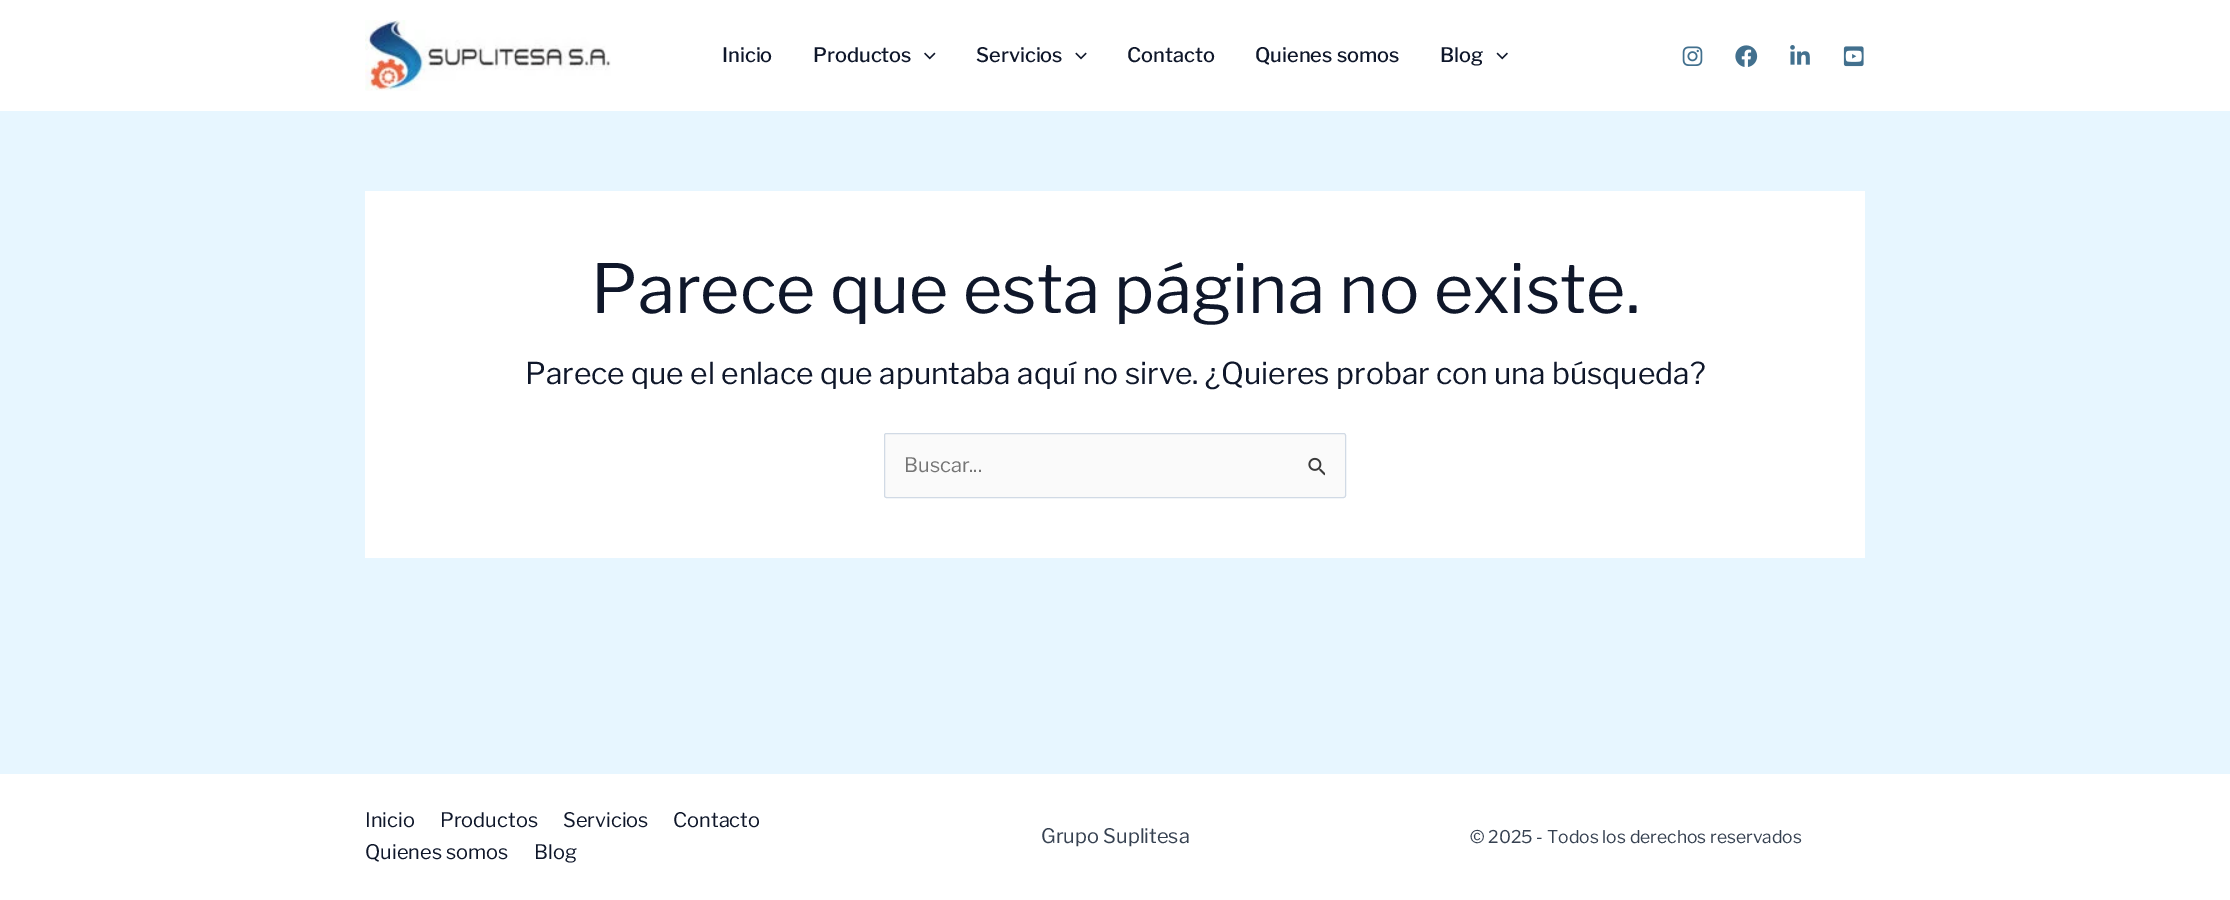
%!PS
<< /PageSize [2230 900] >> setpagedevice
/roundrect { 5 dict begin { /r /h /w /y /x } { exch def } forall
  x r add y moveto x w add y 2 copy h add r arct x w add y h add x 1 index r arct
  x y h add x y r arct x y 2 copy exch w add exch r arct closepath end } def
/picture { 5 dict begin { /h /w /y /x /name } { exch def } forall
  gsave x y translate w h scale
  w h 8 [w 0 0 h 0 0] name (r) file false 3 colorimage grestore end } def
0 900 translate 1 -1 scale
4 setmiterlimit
0.906 0.965 1 setrgbcolor
0 0 2230 900 rectfill
1 setgray
0 0 2230 111 rectfill
(img1.rgb) 365 20 246 71 picture
/LibreFranklin-Medium [20 0 0 -20 0 0] selectfont
0.059 0.09 0.165 setrgbcolor
722 62 moveto (Inicio) show
813 62 moveto (Productos) show
(img2.rgb) 924 52 12 8 picture
976 62 moveto (Servicios) show
(img3.rgb) 1075 52 12 8 picture
1127 62 moveto (Contacto) show
1255 62 moveto (Quienes somos) show
1440 62 moveto (Blog) show
(img4.rgb) 1496 52 12 8 picture
(img5.rgb) 1682 46 21 20 picture
(img6.rgb) 1735 45 23 22 picture
(img7.rgb) 1790 45 20 20 picture
(img8.rgb) 1843 46 21 21 picture
1 setgray
365 191 1500 367 rectfill
/LibreFranklin-Regular [67.5 0 0 -67.5 0 0] selectfont
0.059 0.09 0.165 setrgbcolor
591 313 moveto (Parece que esta página no existe.) show
/LibreFranklin-Regular [30 0 0 -30 0 0] selectfont
525 384 moveto (Parece que el enlace que apuntaba aquí no sirve. ¿Quieres probar con una búsqueda?) show
0.98 setgray
884.5 433.5 461 64 2 roundrect gsave fill grestore
0.82 0.855 0.898 setrgbcolor
stroke
/LibreFranklin-Regular [20 0 0 -20 0 0] selectfont
0.459 setgray
904 472 moveto (Buscar...) show
(img9.rgb) 1308 457 17 19 picture
1 setgray
0 774 2230 126 rectfill
0.059 0.09 0.165 setrgbcolor
365 827 moveto (Inicio) show
440 827 moveto (Productos) show
563 827 moveto (Servicios) show
673 827 moveto (Contacto) show
365 859 moveto (Quienes somos) show
534 859 moveto (Blog) show
0.212 0.255 0.318 setrgbcolor
1041 843 moveto (Grupo Suplitesa) show
/LibreFranklin-Regular [17.5 0 0 -17.5 0 0] selectfont
1470 843 moveto (© 2025 - Todos los derechos reservados) show
showpage
